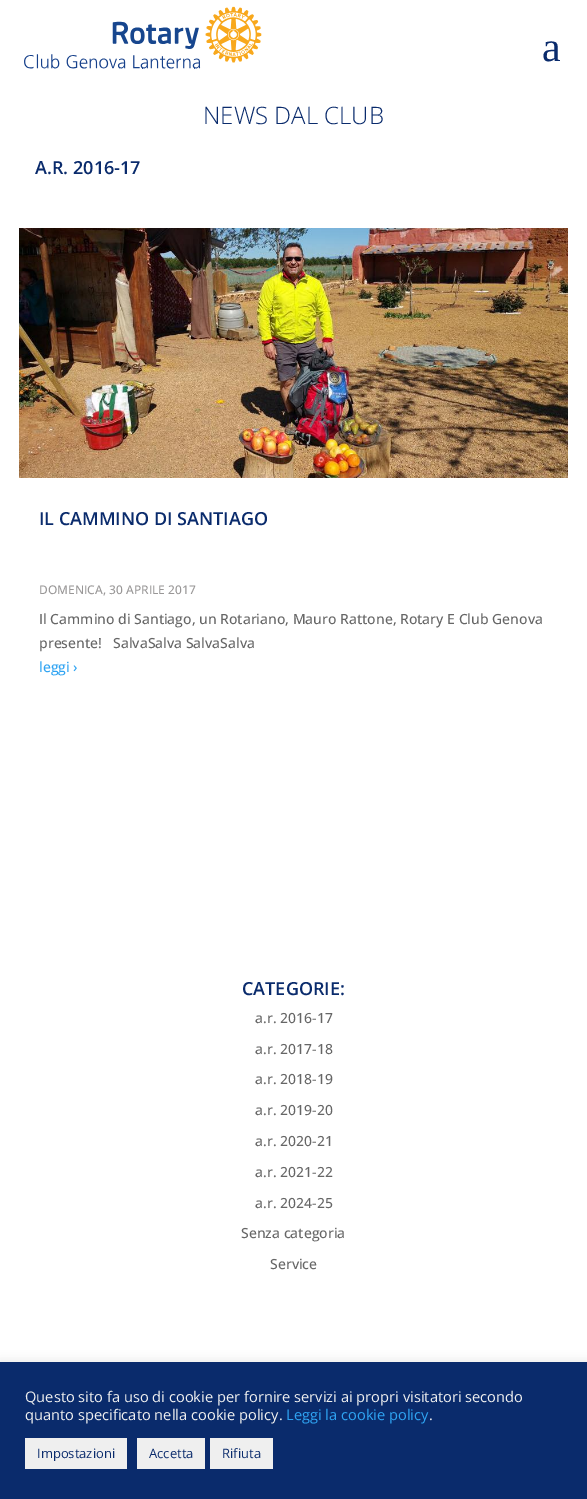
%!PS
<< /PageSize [587 1499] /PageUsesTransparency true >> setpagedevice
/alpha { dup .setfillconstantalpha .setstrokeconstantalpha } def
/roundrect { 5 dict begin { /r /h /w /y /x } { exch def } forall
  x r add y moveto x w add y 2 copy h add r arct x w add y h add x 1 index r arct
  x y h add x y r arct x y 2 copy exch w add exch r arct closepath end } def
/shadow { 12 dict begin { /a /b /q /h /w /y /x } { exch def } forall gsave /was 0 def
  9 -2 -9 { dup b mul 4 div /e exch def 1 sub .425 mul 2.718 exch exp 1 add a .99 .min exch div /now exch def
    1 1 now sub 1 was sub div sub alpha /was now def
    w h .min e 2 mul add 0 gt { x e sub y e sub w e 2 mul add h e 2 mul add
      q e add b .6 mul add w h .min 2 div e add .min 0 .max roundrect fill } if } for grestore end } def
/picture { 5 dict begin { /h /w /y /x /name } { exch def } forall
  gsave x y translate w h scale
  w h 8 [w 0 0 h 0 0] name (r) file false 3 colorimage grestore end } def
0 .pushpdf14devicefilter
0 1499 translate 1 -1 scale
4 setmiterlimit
1 setgray
0 0 587 1499 rectfill
(img1.rgb) 24 6 238 63 picture
/LiberationSerif-Regular [42 0 0 -42 0 0] selectfont
0.039 0.169 0.424 setrgbcolor
542 61 moveto (a) show
/OpenSans-Light [24 0 0 -24 0 0] selectfont
203 124 moveto (NEWS DAL CLUB) show
/OpenSans-SemiBold [18 0 0 -18 0 0] selectfont
35 174 moveto (A.R. 2016-17) show
(img2.rgb) 19 228 549 250 picture
39 525 moveto (IL CAMMINO DI SANTIAGO) show
/OpenSans-Medium [12 0 0 -12 0 0] selectfont
0.6 0.592 0.592 setrgbcolor
39 594 moveto (DOMENICA, 30 APRILE 2017) show
/OpenSans-Medium [14 0 0 -14 0 0] selectfont
0.4 setgray
39 624 moveto (Il Cammino di Santiago, un Rotariano, Mauro Rattone, Rotary E Club Genova) show
39 648 moveto (presente!) show
113 648 moveto (SalvaSalva SalvaSalva) show
0.18 0.639 0.949 setrgbcolor
39 672 moveto (leggi ›) show
/OpenSans-SemiBold [18 0 0 -18 0 0] selectfont
0.039 0.169 0.424 setrgbcolor
242 995 moveto (CATEGORIE:) show
/OpenSans-Medium [14 0 0 -14 0 0] selectfont
0.4 setgray
255 1023 moveto (a.r. 2016-17) show
255 1054 moveto (a.r. 2017-18) show
255 1084 moveto (a.r. 2018-19) show
255 1115 moveto (a.r. 2019-20) show
255 1146 moveto (a.r. 2020-21) show
255 1177 moveto (a.r. 2021-22) show
255 1208 moveto (a.r. 2024-25) show
241 1238 moveto (Senza categoria) show
270 1269 moveto (Service) show
0.675 0.671 0.671 setrgbcolor
0 1361 587 137 0 5 0.3 shadow
0.039 0.169 0.424 setrgbcolor
0 1362 587 137 rectfill
/OpenSans-Regular [14.65 0 0 -14.65 0 0] selectfont
0.937 setgray
25 1402 moveto (Questo sito fa uso di cookie per fornire servizi ai propri visitatori secondo) show
25 1420 moveto (quanto specificato nella cookie policy.) show
0.18 0.639 0.949 setrgbcolor
286 1420 moveto (Leggi la cookie policy) show
0.937 setgray
429 1420 moveto (.) show
25 1438 102 31 rectfill
/OpenSans-Regular [13 0 0 -13 0 0] selectfont
0.039 0.169 0.424 setrgbcolor
37 1458 moveto (Impostazioni) show
0.937 setgray
137 1438 68 31 rectfill
0.039 0.169 0.424 setrgbcolor
149 1458 moveto (Accetta) show
0.937 setgray
210 1438 63 31 rectfill
0.039 0.169 0.424 setrgbcolor
222 1458 moveto (Rifiuta) show
.poppdf14devicefilter showpage
